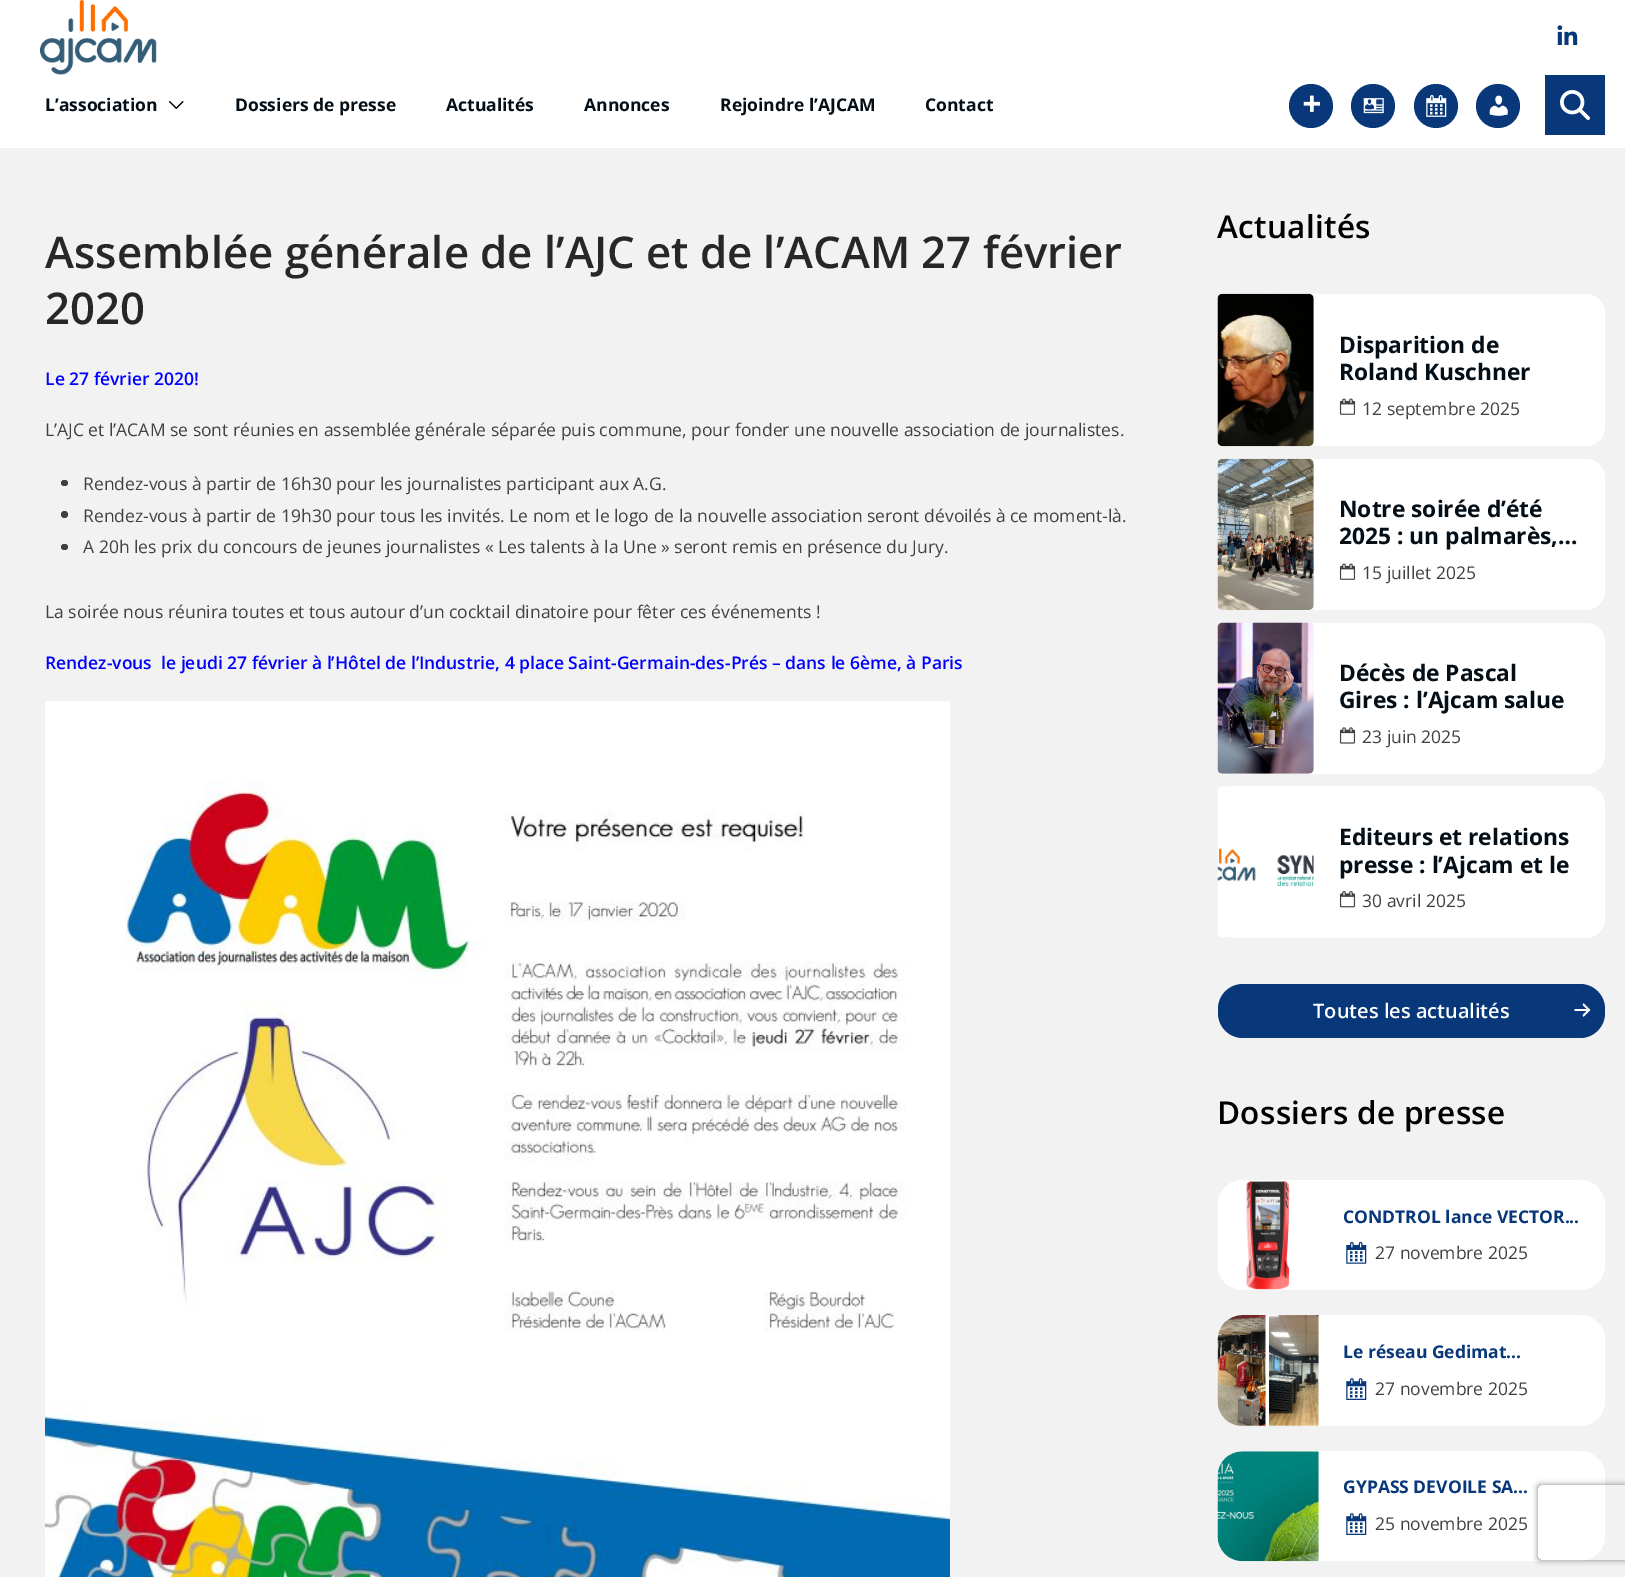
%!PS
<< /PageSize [1625 1577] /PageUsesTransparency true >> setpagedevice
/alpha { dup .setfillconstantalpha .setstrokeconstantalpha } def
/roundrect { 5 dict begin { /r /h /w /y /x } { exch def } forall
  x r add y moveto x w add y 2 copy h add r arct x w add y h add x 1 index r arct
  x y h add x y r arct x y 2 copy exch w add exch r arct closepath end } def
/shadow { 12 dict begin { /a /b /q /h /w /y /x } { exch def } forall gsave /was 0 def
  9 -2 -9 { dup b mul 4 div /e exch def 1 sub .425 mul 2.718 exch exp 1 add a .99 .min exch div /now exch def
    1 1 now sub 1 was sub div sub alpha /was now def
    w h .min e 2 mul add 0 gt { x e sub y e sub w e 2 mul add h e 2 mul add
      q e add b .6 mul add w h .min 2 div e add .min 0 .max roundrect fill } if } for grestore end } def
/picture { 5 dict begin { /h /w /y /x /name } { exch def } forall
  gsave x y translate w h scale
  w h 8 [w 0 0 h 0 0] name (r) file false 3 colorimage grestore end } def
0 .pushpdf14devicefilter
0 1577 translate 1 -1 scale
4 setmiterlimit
1 setgray
0 0 1625 1577 rectfill
(img1.rgb) 40 0 117 75 picture
/OpenSans-Bold [17.5 0 0 -17.5 0 0] selectfont
0.016 0.055 0.086 setrgbcolor
45 111 moveto (L’association) show
(img2.rgb) 169 101 15 8 picture
235 111 moveto (Dossiers de presse) show
446 111 moveto (Actualités) show
584 111 moveto (Annonces) show
720 111 moveto (Rejoindre l’AJCAM) show
925 111 moveto (Contact) show
0.031 0.22 0.475 setrgbcolor
newpath 1311 106 22 0 360 arc closepath fill
(img3.rgb) 1303 95 17 17 picture
newpath 1373 106 22 0 360 arc closepath fill
(img4.rgb) 1363 98 21 16 picture
newpath 1436 106 22 0 360 arc closepath fill
(img5.rgb) 1426 95 21 22 picture
newpath 1498 106 22 0 360 arc closepath fill
(img6.rgb) 1489 95 19 21 picture
(img7.rgb) 1557 25 21 20 picture
1545 75 60 60 rectfill
(img8.rgb) 1560 90 30 30 picture
0.949 setgray
0 148 1625 1429 rectfill
/OpenSans-SemiBold [43.75 0 0 -43.75 0 0] selectfont
0.153 0.153 0.165 setrgbcolor
45 268 moveto (Assemblée générale de l’AJC et de l’ACAM 27 février) show
45 324 moveto (2020) show
/OpenSans-SemiBold [17.5 0 0 -17.5 0 0] selectfont
0 0 1 setrgbcolor
45 385 moveto (Le 27 février 2020!) show
/OpenSans-Regular [17.5 0 0 -17.5 0 0] selectfont
0.255 setgray
45 436 moveto (L’AJC et l’ACAM se sont réunies en assemblée générale séparée puis commune, pour fonder une nouvelle association de journalistes.) show
0.247 0.247 0.275 setrgbcolor
61 480 7 6 3 roundrect fill
0.255 setgray
83 490 moveto (Rendez-vous à partir de 16h30 pour les journalistes participant aux A.G.) show
0.247 0.247 0.275 setrgbcolor
newpath 64.5 514.5 3.5 0 360 arc closepath fill
0.255 setgray
83 522 moveto (Rendez-vous à partir de 19h30 pour tous les invités. Le nom et le logo de la nouvelle association seront dévoilés à ce moment-là.) show
0.247 0.247 0.275 setrgbcolor
61 544 7 6 3 roundrect fill
0.255 setgray
83 553 moveto (A 20h les prix du concours de jeunes journalistes « Les talents à la Une » seront remis en présence du Jury.) show
45 618 moveto (La soirée nous réunira toutes et tous autour d’un cocktail dinatoire pour fêter ces événements !) show
/OpenSans-SemiBold [17.5 0 0 -17.5 0 0] selectfont
0 0 1 setrgbcolor
45 669 moveto (Rendez-vous  le jeudi 27 février à l’Hôtel de l’Industrie, 4 place Saint-Germain-des-Prés – dans le 6ème, à Paris) show
(img9.rgb) 45 701 905 876 picture
/OpenSans-SemiBold [31.5 0 0 -31.5 0 0] selectfont
0 setgray
1217 238 moveto 0.3 0 (Actualités) ashow
1 setgray
1218 294 387 152 19 roundrect fill
(img10.rgb) 1217 293 97 154 picture
/OpenSans-Bold [22.75 0 0 -22.75 0 0] selectfont
0.016 0.055 0.086 setrgbcolor
1339 353 moveto (Disparition de) show
1339 380 moveto (Roland Kuschner) show
(img11.rgb) 1339 398 17 17 picture
/OpenSans-Regular [17.5 0 0 -17.5 0 0] selectfont
0.255 setgray
1362 415 moveto (12 septembre 2025) show
1 setgray
1218 459 387 151 19 roundrect fill
(img12.rgb) 1217 458 97 152 picture
/OpenSans-Bold [22.75 0 0 -22.75 0 0] selectfont
0.016 0.055 0.086 setrgbcolor
1339 517 moveto (Notre soirée d’été) show
1339 544 moveto (2025 : un palmarès,…) show
(img11.rgb) 1339 563 17 17 picture
/OpenSans-Regular [17.5 0 0 -17.5 0 0] selectfont
0.255 setgray
1362 579 moveto (15 juillet 2025) show
1 setgray
1218 623 387 151 19 roundrect fill
(img13.rgb) 1217 622 97 152 picture
/OpenSans-Bold [22.75 0 0 -22.75 0 0] selectfont
0.016 0.055 0.086 setrgbcolor
1339 681 moveto (Décès de Pascal) show
1339 708 moveto (Gires : l’Ajcam salue) show
(img14.rgb) 1339 727 17 17 picture
/OpenSans-Regular [17.5 0 0 -17.5 0 0] selectfont
0.255 setgray
1362 743 moveto (23 juin 2025) show
1 setgray
1218 786 387 152 19 roundrect fill
(img15.rgb) 1217 786 97 151 picture
/OpenSans-Bold [22.75 0 0 -22.75 0 0] selectfont
0.016 0.055 0.086 setrgbcolor
1339 845 moveto (Editeurs et relations) show
1339 873 moveto (presse : l’Ajcam et le) show
(img16.rgb) 1339 891 17 17 picture
/OpenSans-Regular [17.5 0 0 -17.5 0 0] selectfont
0.255 setgray
1362 907 moveto (30 avril 2025) show
0.031 0.22 0.475 setrgbcolor
1218 984 387 54 25 roundrect fill
/OpenSans-SemiBold [20 0 0 -20 0 0] selectfont
1 setgray
1313 1018 moveto (Toutes les actualités) show
(img17.rgb) 1574 1003 17 14 picture
/OpenSans-SemiBold [31.5 0 0 -31.5 0 0] selectfont
0 setgray
1217 1124 moveto 0.3 0 (Dossiers de presse) ashow
1 setgray
1218 1180 387 110 25 roundrect fill
(img18.rgb) 1218 1181 72 109 picture
/OpenSans-Bold [17.5 0 0 -17.5 0 0] selectfont
0.031 0.22 0.475 setrgbcolor
1343 1223 moveto (CONDTROL lance VECTOR...) show
(img19.rgb) 1346 1241 21 23 picture
/OpenSans-Regular [17.5 0 0 -17.5 0 0] selectfont
0.255 setgray
1375 1259 moveto (27 novembre 2025) show
1 setgray
1218 1315 387 111 25 roundrect fill
(img20.rgb) 1217 1315 102 112 picture
/OpenSans-Bold [17.5 0 0 -17.5 0 0] selectfont
0.031 0.22 0.475 setrgbcolor
1343 1358 moveto (Le réseau Gedimat...) show
(img21.rgb) 1346 1378 21 22 picture
/OpenSans-Regular [17.5 0 0 -17.5 0 0] selectfont
0.255 setgray
1375 1395 moveto (27 novembre 2025) show
1 setgray
1218 1451 387 110 25 roundrect fill
(img22.rgb) 1217 1451 102 111 picture
/OpenSans-Bold [17.5 0 0 -17.5 0 0] selectfont
0.031 0.22 0.475 setrgbcolor
1343 1493 moveto (GYPASS DEVOILE SA...) show
(img21.rgb) 1346 1513 21 22 picture
/OpenSans-Regular [17.5 0 0 -17.5 0 0] selectfont
0.255 setgray
1375 1530 moveto (25 novembre 2025) show
gsave
newpath 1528 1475 moveto 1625 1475 lineto 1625 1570 lineto 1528 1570 lineto closepath 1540.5 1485 moveto 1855.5 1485 lineto 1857 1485 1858 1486 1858 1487.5 curveto 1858 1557.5 lineto 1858 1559 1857 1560 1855.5 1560 curveto 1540.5 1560 lineto 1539 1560 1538 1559 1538 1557.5 curveto 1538 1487.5 lineto 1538 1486 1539 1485 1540.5 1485 curveto closepath eoclip newpath
0.502 setgray
1538 1485 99 75 2.5 3 1 shadow
grestore
.poppdf14devicefilter showpage
